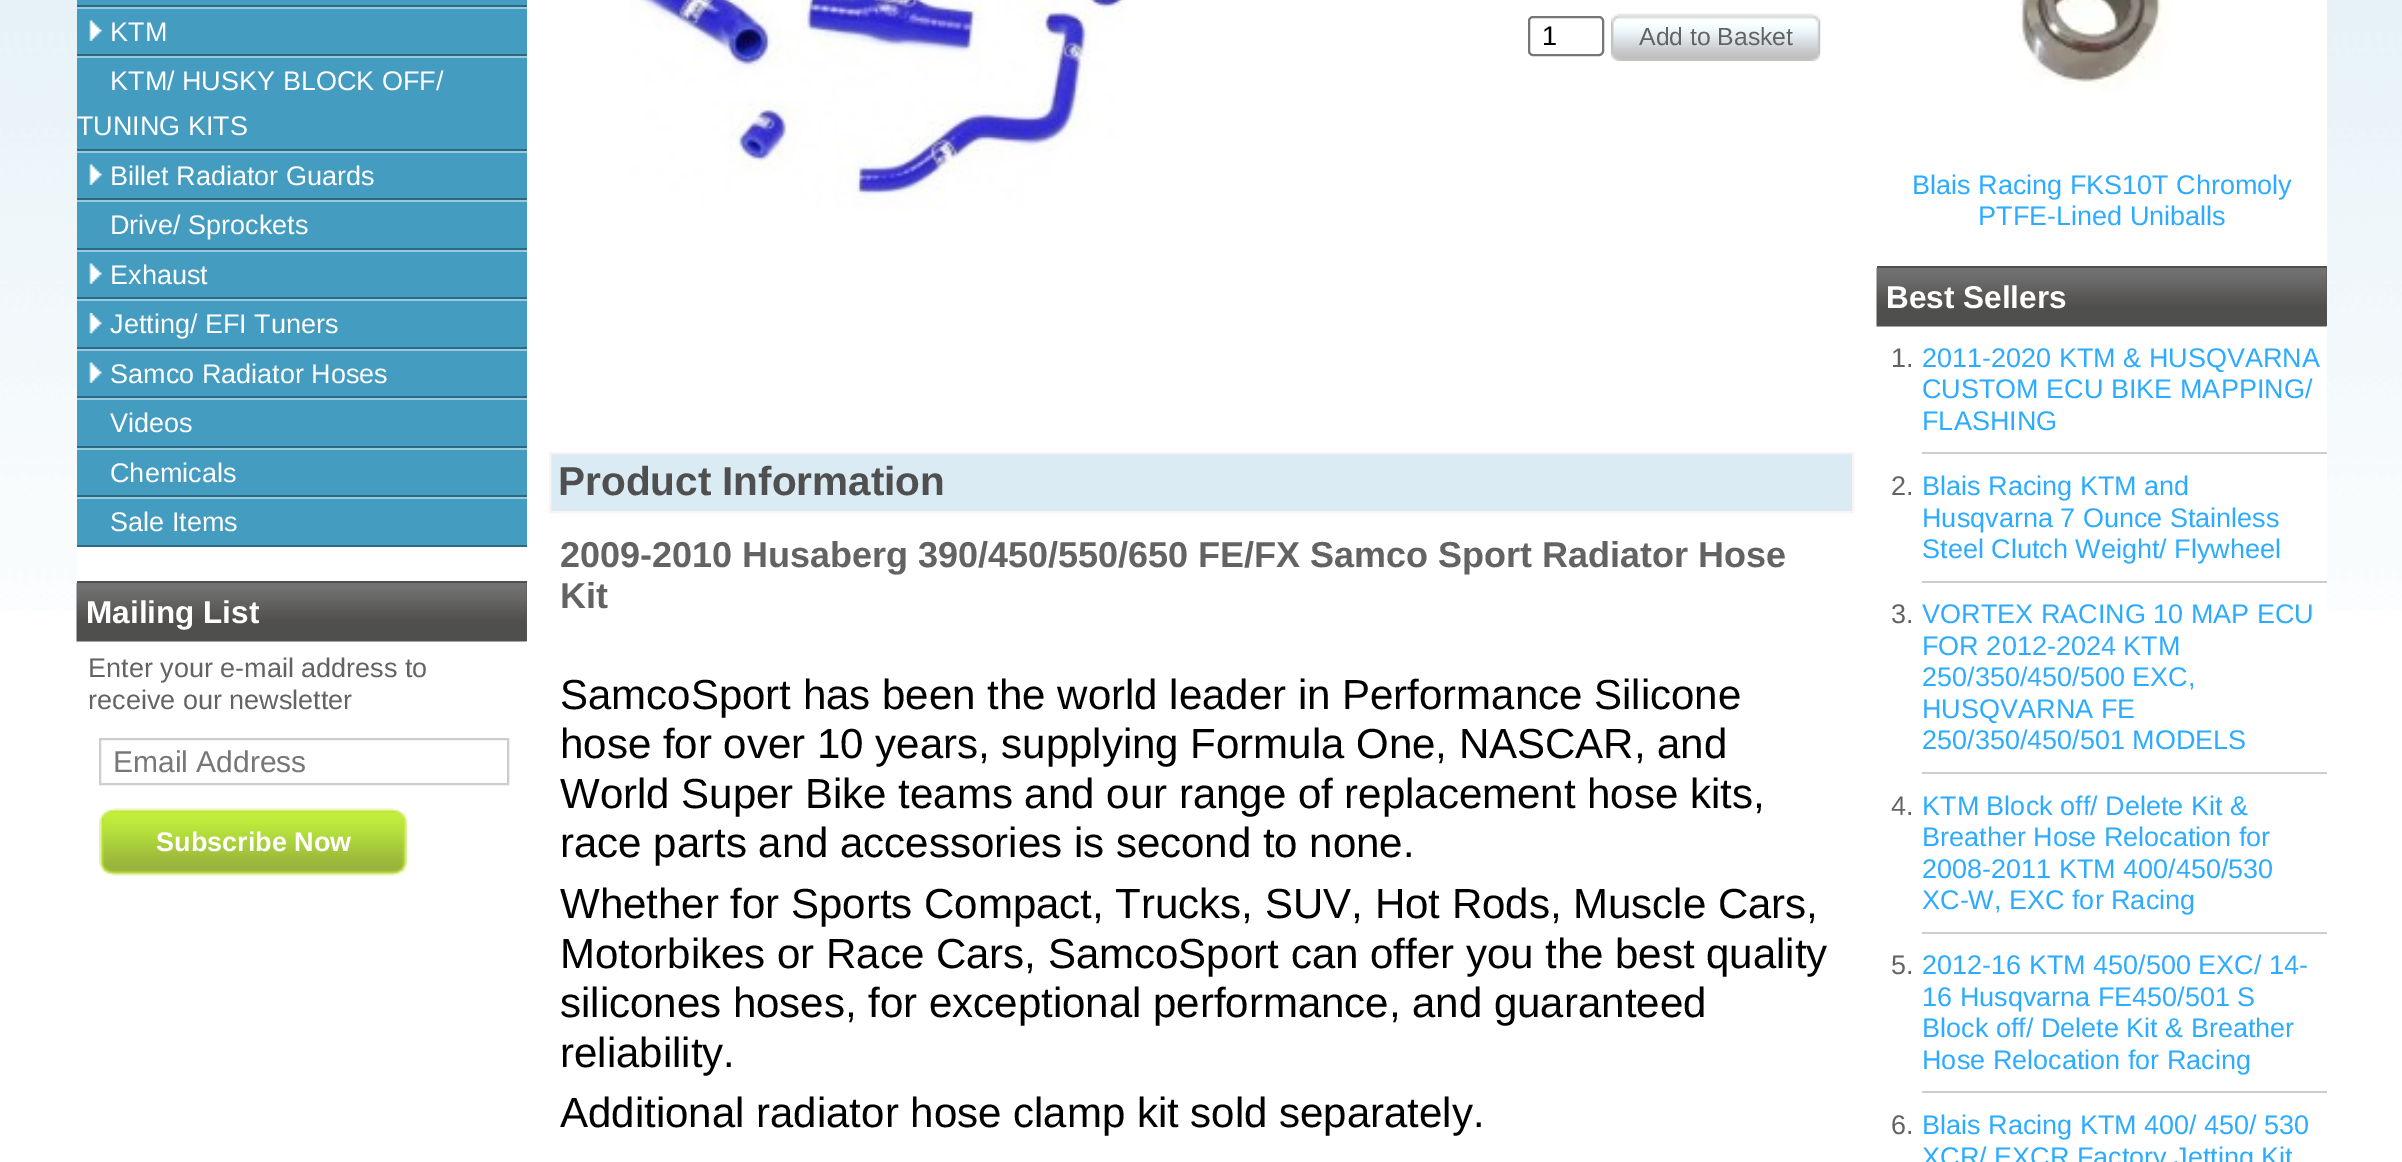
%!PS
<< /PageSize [2402 1162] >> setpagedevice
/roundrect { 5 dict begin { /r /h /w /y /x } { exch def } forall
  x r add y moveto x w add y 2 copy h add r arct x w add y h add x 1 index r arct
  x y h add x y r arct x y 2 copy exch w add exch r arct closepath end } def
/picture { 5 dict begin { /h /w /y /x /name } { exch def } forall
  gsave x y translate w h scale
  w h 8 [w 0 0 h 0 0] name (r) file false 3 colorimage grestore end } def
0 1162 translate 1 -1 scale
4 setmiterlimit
1 setgray
0 0 2402 1162 rectfill
(img1.rgb) 0 0 2402 611 picture
77 0 2250 611 rectfill
0.267 0.616 0.757 setrgbcolor
77 0 450 5 rectfill
0.173 0.416 0.514 setrgbcolor
77 5 450 2 rectfill
0.267 0.616 0.757 setrgbcolor
77 9 450 45 rectfill
(img2.rgb) 89 20 13 21 picture
0.596 0.788 0.863 setrgbcolor
77 7 450 2 rectfill
0.173 0.416 0.514 setrgbcolor
77 54 450 2 rectfill
/LiberationSans-Regular [27 0 0 -27 0 0] selectfont
1 setgray
110 41 moveto (KTM) show
0.267 0.616 0.757 setrgbcolor
77 58 450 91 rectfill
0.596 0.788 0.863 setrgbcolor
77 56 450 2 rectfill
0.173 0.416 0.514 setrgbcolor
77 149 450 2 rectfill
1 setgray
110 90 moveto (KTM/ HUSKY BLOCK OFF/) show
77 135 moveto (TUNING KITS) show
0.267 0.616 0.757 setrgbcolor
77 153 450 45 rectfill
(img2.rgb) 89 164 13 21 picture
0.596 0.788 0.863 setrgbcolor
77 151 450 2 rectfill
0.173 0.416 0.514 setrgbcolor
77 198 450 2 rectfill
1 setgray
110 185 moveto (Billet Radiator Guards) show
0.267 0.616 0.757 setrgbcolor
77 202 450 46 rectfill
0.596 0.788 0.863 setrgbcolor
77 200 450 2 rectfill
0.173 0.416 0.514 setrgbcolor
77 248 450 2 rectfill
1 setgray
110 234 moveto (Drive/ Sprockets) show
0.267 0.616 0.757 setrgbcolor
77 252 450 45 rectfill
(img2.rgb) 89 263 13 21 picture
0.596 0.788 0.863 setrgbcolor
77 250 450 2 rectfill
0.173 0.416 0.514 setrgbcolor
77 297 450 2 rectfill
1 setgray
110 284 moveto (Exhaust) show
0.267 0.616 0.757 setrgbcolor
77 301 450 46 rectfill
(img3.rgb) 89 313 13 21 picture
0.596 0.788 0.863 setrgbcolor
77 299 450 2 rectfill
0.173 0.416 0.514 setrgbcolor
77 347 450 2 rectfill
1 setgray
110 333 moveto (Jetting/ EFI Tuners) show
0.267 0.616 0.757 setrgbcolor
77 351 450 45 rectfill
(img2.rgb) 89 362 13 21 picture
0.596 0.788 0.863 setrgbcolor
77 349 450 2 rectfill
0.173 0.416 0.514 setrgbcolor
77 396 450 2 rectfill
1 setgray
110 383 moveto (Samco Radiator Hoses) show
0.267 0.616 0.757 setrgbcolor
77 400 450 46 rectfill
0.596 0.788 0.863 setrgbcolor
77 398 450 2 rectfill
0.173 0.416 0.514 setrgbcolor
77 446 450 2 rectfill
1 setgray
110 432 moveto (Videos) show
0.267 0.616 0.757 setrgbcolor
77 450 450 45 rectfill
0.596 0.788 0.863 setrgbcolor
77 448 450 2 rectfill
0.173 0.416 0.514 setrgbcolor
77 495 450 2 rectfill
1 setgray
110 482 moveto (Chemicals) show
0.267 0.616 0.757 setrgbcolor
77 499 450 46 rectfill
0.596 0.788 0.863 setrgbcolor
77 497 450 2 rectfill
0.173 0.416 0.514 setrgbcolor
77 545 450 2 rectfill
1 setgray
110 531 moveto (Sale Items) show
0.349 0.341 0.333 setrgbcolor
526 583 1 58 rectfill
(img4.rgb) 76 583 451 59 picture
0.31 setgray
77 581 450 2 rectfill
/LiberationSans-Bold [31.5 0 0 -31.5 0 0] selectfont
1 setgray
86 623 moveto (Mailing List) show
/LiberationSans-Regular [27 0 0 -27 0 0] selectfont
0.388 setgray
88 677 moveto (Enter your e-mail address to) show
88 709 moveto (receive our newsletter) show
0.804 setgray
2 setlinewidth
100 739 408 45 rectstroke
/LiberationSans-Regular [30 0 0 -30 0 0] selectfont
0.467 setgray
113 772 moveto (Email Address) show
(img5.rgb) 99 808 309 68 picture
/LiberationSans-Bold [27 0 0 -27 0 0] selectfont
1 setgray
156 851 moveto (Subscribe Now) show
(img6.rgb) 630 0 496 210 picture
0.463 setgray
1529 17 74 38 4 roundrect stroke
/LiberationSans-Regular [27 0 0 -27 0 0] selectfont
0 setgray
1542 45 moveto (1) show
(img7.rgb) 1611 13 210 48 picture
/LiberationSans-Regular [24.75 0 0 -24.75 0 0] selectfont
0.388 setgray
1639 45 moveto (Add to Basket) show
0.855 0.922 0.953 setrgbcolor
newpath 550 453 moveto 1853 453 lineto 1853 512 lineto 550 512 lineto closepath gsave fill grestore
0.98 0.953 0.953 setrgbcolor
stroke
/LiberationSans-Bold [40.5 0 0 -40.5 0 0] selectfont
0.31 setgray
558 495 moveto (Product Information) show
/LiberationSans-Bold [36 0 0 -36 0 0] selectfont
0.388 setgray
560 567 moveto (2009-2010 Husaberg 390/450/550/650 FE/FX Samco Sport Radiator Hose) show
560 608 moveto (Kit) show
/LiberationSans-Regular [42 0 0 -42 0 0] selectfont
0 setgray
560 709 moveto (SamcoSport has been the world leader in Performance Silicone) show
560 758 moveto (hose for over 10 years, supplying Formula One, NASCAR, and) show
560 808 moveto (World Super Bike teams and our range of replacement hose kits,) show
560 857 moveto (race parts and accessories is second to none.) show
560 918 moveto (Whether for Sports Compact, Trucks, SUV, Hot Rods, Muscle Cars,) show
560 968 moveto (Motorbikes or Race Cars, SamcoSport can offer you the best quality) show
560 1017 moveto (silicones hoses, for exceptional performance, and guaranteed) show
560 1067 moveto (reliability.) show
560 1127 moveto (Additional radiator hose clamp kit sold separately.) show
(img8.rgb) 2018 0 154 92 picture
/LiberationSans-Regular [27 0 0 -27 0 0] selectfont
0.176 0.671 1 setrgbcolor
1912 194 moveto (Blais Racing FKS10T Chromoly) show
1978 225 moveto (PTFE-Lined Uniballs) show
0.349 0.341 0.333 setrgbcolor
2326 268 1 58 rectfill
(img9.rgb) 1876 268 451 59 picture
0.31 setgray
1877 266 450 2 rectfill
/LiberationSans-Bold [31.5 0 0 -31.5 0 0] selectfont
1 setgray
1886 308 moveto (Best Sellers) show
0.804 setgray
1922 452 405 2 rectfill
/LiberationSans-Regular [27 0 0 -27 0 0] selectfont
0.388 setgray
1891 367 moveto (1.) show
0.176 0.671 1 setrgbcolor
1922 367 moveto (2011-2020 KTM & HUSQVARNA) show
1922 398 moveto (CUSTOM ECU BIKE MAPPING/) show
1922 430 moveto (FLASHING) show
0.804 setgray
1922 581 405 2 rectfill
0.388 setgray
1891 495 moveto (2.) show
0.176 0.671 1 setrgbcolor
1922 495 moveto (Blais Racing KTM and) show
1922 527 moveto (Husqvarna 7 Ounce Stainless) show
1922 558 moveto (Steel Clutch Weight/ Flywheel) show
0.804 setgray
1922 772 405 2 rectfill
0.388 setgray
1891 623 moveto (3.) show
0.176 0.671 1 setrgbcolor
1922 623 moveto (VORTEX RACING 10 MAP ECU) show
1922 655 moveto (FOR 2012-2024 KTM) show
1922 686 moveto (250/350/450/500 EXC,) show
1922 718 moveto (HUSQVARNA FE) show
1922 749 moveto (250/350/450/501 MODELS) show
0.804 setgray
1922 932 405 2 rectfill
0.388 setgray
1891 815 moveto (4.) show
0.176 0.671 1 setrgbcolor
1922 815 moveto (KTM Block off/ Delete Kit &) show
1922 846 moveto (Breather Hose Relocation for) show
1922 878 moveto (2008-2011 KTM 400/450/530) show
1922 909 moveto (XC-W, EXC for Racing) show
0.804 setgray
1922 1091 405 2 rectfill
0.388 setgray
1891 974 moveto (5.) show
0.176 0.671 1 setrgbcolor
1922 974 moveto (2012-16 KTM 450/500 EXC/ 14-) show
1922 1006 moveto (16 Husqvarna FE450/501 S) show
1922 1037 moveto (Block off/ Delete Kit & Breather) show
1922 1069 moveto (Hose Relocation for Racing) show
0.388 setgray
1891 1134 moveto (6.) show
0.176 0.671 1 setrgbcolor
1922 1134 moveto (Blais Racing KTM 400/ 450/ 530) show
1922 1166 moveto (XCR/ EXCR Factory Jetting Kit) show
showpage
